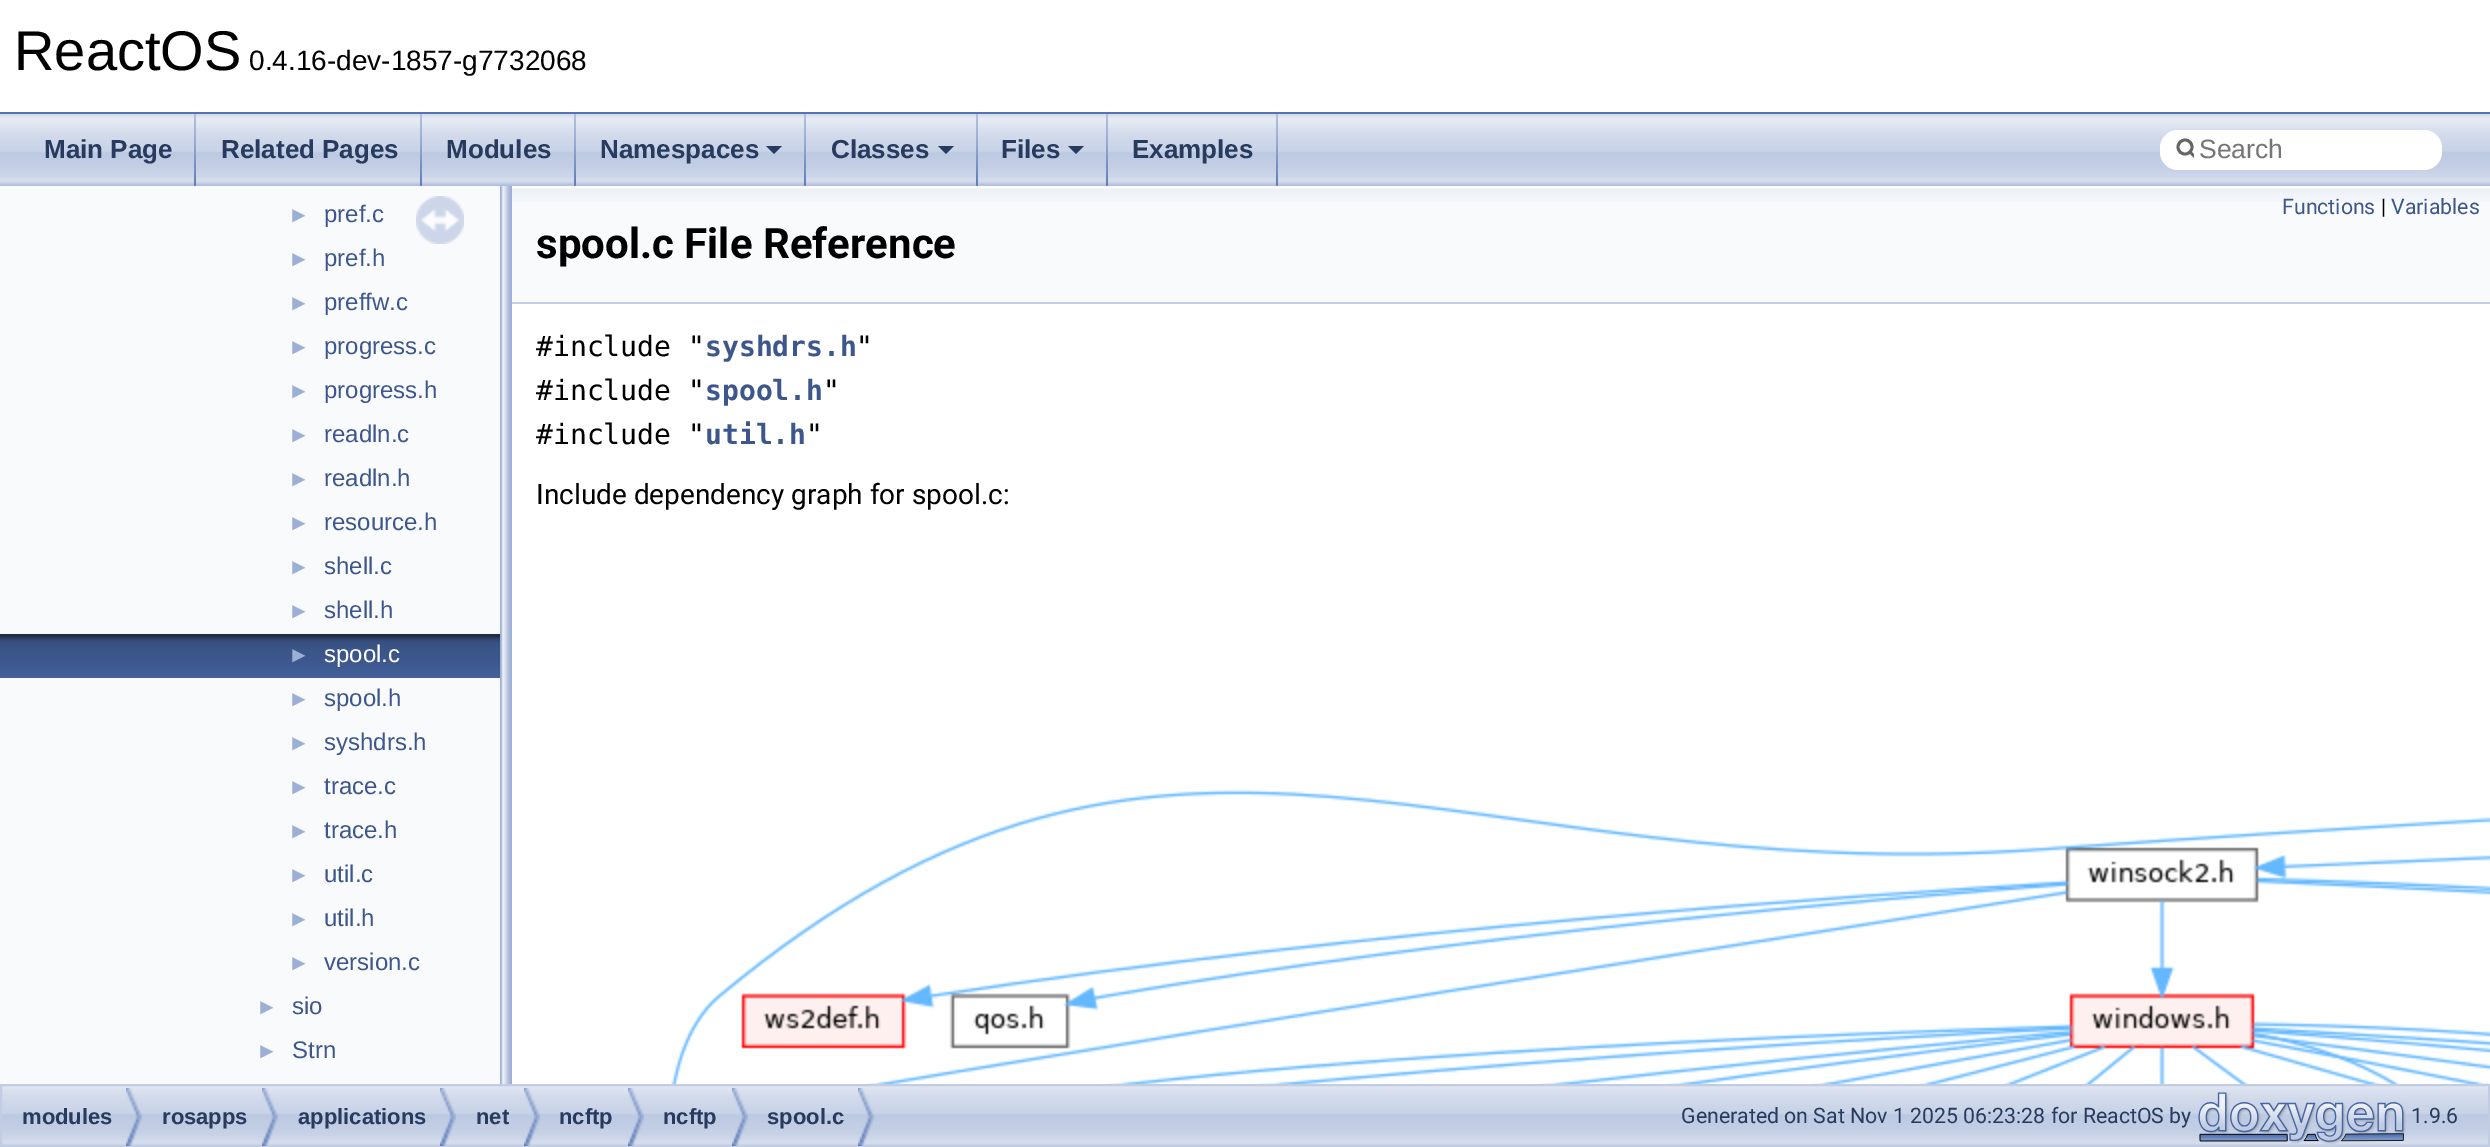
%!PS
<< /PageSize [2490 1147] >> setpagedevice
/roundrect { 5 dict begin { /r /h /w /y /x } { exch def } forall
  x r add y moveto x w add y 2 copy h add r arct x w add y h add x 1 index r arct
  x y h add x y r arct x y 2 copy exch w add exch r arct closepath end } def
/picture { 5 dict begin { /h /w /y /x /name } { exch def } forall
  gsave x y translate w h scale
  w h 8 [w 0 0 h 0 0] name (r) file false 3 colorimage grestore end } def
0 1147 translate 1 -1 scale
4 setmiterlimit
1 setgray
0 0 2490 1147 rectfill
0.325 0.451 0.706 setrgbcolor
0 112 2490 2 rectfill
/LiberationSans-Regular [56 0 0 -56 0 0] selectfont
0 setgray
14 70 moveto (ReactOS) show
/LiberationSans-Regular [28 0 0 -28 0 0] selectfont
249 70 moveto (0.4.16-dev-1857-g7732068) show
(img1.rgb) 0 114 2490 72 picture
(img2.rgb) 194 114 2 72 picture
/LiberationSans-Bold [26 0 0 -26 0 0] selectfont
0.157 0.227 0.365 setrgbcolor
44 158 moveto (Main Page) show
(img2.rgb) 420 114 2 72 picture
221 158 moveto (Related Pages) show
(img2.rgb) 574 114 2 72 picture
446 158 moveto (Modules) show
(img2.rgb) 804 114 2 72 picture
600 158 moveto (Namespaces) show
newpath 766 146 moveto 782 146 lineto 774 154 lineto closepath fill
(img2.rgb) 976 114 2 72 picture
831 158 moveto (Classes) show
newpath 938 146 moveto 954 146 lineto 946 154 lineto closepath fill
(img2.rgb) 1106 114 2 72 picture
1001 158 moveto (Files) show
newpath 1068 146 moveto 1084 146 lineto 1076 154 lineto closepath fill
(img2.rgb) 1276 114 2 72 picture
1132 158 moveto (Examples) show
1 setgray
2160 130 282 40 18 roundrect fill
0.396 setgray
2.8 setlinewidth
newpath 2185 147 7 0 360 arc closepath stroke
gsave
2174 130 20 38 rectclip
1 setlinecap
newpath 2190 152 moveto 2196 158 lineto stroke
grestore
/LiberationSans-Regular [26.5 0 0 -26.5 0 0] selectfont
0.459 setgray
2199 158 moveto (Search) show
0.976 0.98 0.988 setrgbcolor
0 186 500 898 rectfill
/LiberationSans-Regular [22 0 0 -22 0 0] selectfont
0.612 0.686 0.831 setrgbcolor
288 222 moveto (►) show
/LiberationSans-Regular [24 0 0 -24 0 0] selectfont
0.239 0.341 0.549 setrgbcolor
324 222 moveto (pref.c) show
/LiberationSans-Regular [22 0 0 -22 0 0] selectfont
0.612 0.686 0.831 setrgbcolor
288 266 moveto (►) show
/LiberationSans-Regular [24 0 0 -24 0 0] selectfont
0.239 0.341 0.549 setrgbcolor
324 266 moveto (pref.h) show
/LiberationSans-Regular [22 0 0 -22 0 0] selectfont
0.612 0.686 0.831 setrgbcolor
288 310 moveto (►) show
/LiberationSans-Regular [24 0 0 -24 0 0] selectfont
0.239 0.341 0.549 setrgbcolor
324 310 moveto (preffw.c) show
/LiberationSans-Regular [22 0 0 -22 0 0] selectfont
0.612 0.686 0.831 setrgbcolor
288 354 moveto (►) show
/LiberationSans-Regular [24 0 0 -24 0 0] selectfont
0.239 0.341 0.549 setrgbcolor
324 354 moveto (progress.c) show
/LiberationSans-Regular [22 0 0 -22 0 0] selectfont
0.612 0.686 0.831 setrgbcolor
288 398 moveto (►) show
/LiberationSans-Regular [24 0 0 -24 0 0] selectfont
0.239 0.341 0.549 setrgbcolor
324 398 moveto (progress.h) show
/LiberationSans-Regular [22 0 0 -22 0 0] selectfont
0.612 0.686 0.831 setrgbcolor
288 442 moveto (►) show
/LiberationSans-Regular [24 0 0 -24 0 0] selectfont
0.239 0.341 0.549 setrgbcolor
324 442 moveto (readln.c) show
/LiberationSans-Regular [22 0 0 -22 0 0] selectfont
0.612 0.686 0.831 setrgbcolor
288 486 moveto (►) show
/LiberationSans-Regular [24 0 0 -24 0 0] selectfont
0.239 0.341 0.549 setrgbcolor
324 486 moveto (readln.h) show
/LiberationSans-Regular [22 0 0 -22 0 0] selectfont
0.612 0.686 0.831 setrgbcolor
288 530 moveto (►) show
/LiberationSans-Regular [24 0 0 -24 0 0] selectfont
0.239 0.341 0.549 setrgbcolor
324 530 moveto (resource.h) show
/LiberationSans-Regular [22 0 0 -22 0 0] selectfont
0.612 0.686 0.831 setrgbcolor
288 574 moveto (►) show
/LiberationSans-Regular [24 0 0 -24 0 0] selectfont
0.239 0.341 0.549 setrgbcolor
324 574 moveto (shell.c) show
/LiberationSans-Regular [22 0 0 -22 0 0] selectfont
0.612 0.686 0.831 setrgbcolor
288 618 moveto (►) show
/LiberationSans-Regular [24 0 0 -24 0 0] selectfont
0.239 0.341 0.549 setrgbcolor
324 618 moveto (shell.h) show
(img3.rgb) 0 634 500 44 picture
/LiberationSans-Regular [22 0 0 -22 0 0] selectfont
0.612 0.686 0.831 setrgbcolor
288 662 moveto (►) show
/LiberationSans-Regular [24 0 0 -24 0 0] selectfont
1 setgray
324 662 moveto (spool.c) show
/LiberationSans-Regular [22 0 0 -22 0 0] selectfont
0.612 0.686 0.831 setrgbcolor
288 706 moveto (►) show
/LiberationSans-Regular [24 0 0 -24 0 0] selectfont
0.239 0.341 0.549 setrgbcolor
324 706 moveto (spool.h) show
/LiberationSans-Regular [22 0 0 -22 0 0] selectfont
0.612 0.686 0.831 setrgbcolor
288 750 moveto (►) show
/LiberationSans-Regular [24 0 0 -24 0 0] selectfont
0.239 0.341 0.549 setrgbcolor
324 750 moveto (syshdrs.h) show
/LiberationSans-Regular [22 0 0 -22 0 0] selectfont
0.612 0.686 0.831 setrgbcolor
288 794 moveto (►) show
/LiberationSans-Regular [24 0 0 -24 0 0] selectfont
0.239 0.341 0.549 setrgbcolor
324 794 moveto (trace.c) show
/LiberationSans-Regular [22 0 0 -22 0 0] selectfont
0.612 0.686 0.831 setrgbcolor
288 838 moveto (►) show
/LiberationSans-Regular [24 0 0 -24 0 0] selectfont
0.239 0.341 0.549 setrgbcolor
324 838 moveto (trace.h) show
/LiberationSans-Regular [22 0 0 -22 0 0] selectfont
0.612 0.686 0.831 setrgbcolor
288 882 moveto (►) show
/LiberationSans-Regular [24 0 0 -24 0 0] selectfont
0.239 0.341 0.549 setrgbcolor
324 882 moveto (util.c) show
/LiberationSans-Regular [22 0 0 -22 0 0] selectfont
0.612 0.686 0.831 setrgbcolor
288 926 moveto (►) show
/LiberationSans-Regular [24 0 0 -24 0 0] selectfont
0.239 0.341 0.549 setrgbcolor
324 926 moveto (util.h) show
/LiberationSans-Regular [22 0 0 -22 0 0] selectfont
0.612 0.686 0.831 setrgbcolor
288 970 moveto (►) show
/LiberationSans-Regular [24 0 0 -24 0 0] selectfont
0.239 0.341 0.549 setrgbcolor
324 970 moveto (version.c) show
/LiberationSans-Regular [22 0 0 -22 0 0] selectfont
0.612 0.686 0.831 setrgbcolor
256 1014 moveto (►) show
/LiberationSans-Regular [24 0 0 -24 0 0] selectfont
0.239 0.341 0.549 setrgbcolor
292 1014 moveto (sio) show
/LiberationSans-Regular [22 0 0 -22 0 0] selectfont
0.612 0.686 0.831 setrgbcolor
256 1058 moveto (►) show
/LiberationSans-Regular [24 0 0 -24 0 0] selectfont
0.239 0.341 0.549 setrgbcolor
292 1058 moveto (Strn) show
(img4.rgb) 416 196 48 48 picture
(img5.rgb) 500 186 12 898 picture
0.976 0.98 0.988 setrgbcolor
512 202 1978 100 rectfill
(img6.rgb) 512 186 1978 16 picture
0.769 0.812 0.898 setrgbcolor
512 302 1978 2 rectfill
/Roboto-Regular [21.3 0 0 -21.3 0 0] selectfont
0.239 0.341 0.549 setrgbcolor
2282 214 moveto (Functions) show
0 setgray
2381 214 moveto (|) show
0.239 0.341 0.549 setrgbcolor
2391 214 moveto (Variables) show
/Roboto-Bold [42 0 0 -42 0 0] selectfont
0 setgray
536 258 moveto (spool.c File Reference) show
/DejaVuSansMono-Regular [28 0 0 -28 0 0] selectfont
536 356 moveto (#include ") show
/DejaVuSansMono-Bold [28 0 0 -28 0 0] selectfont
0.239 0.341 0.549 setrgbcolor
705 356 moveto (syshdrs.h) show
/DejaVuSansMono-Regular [28 0 0 -28 0 0] selectfont
0 setgray
856 356 moveto (") show
536 400 moveto (#include ") show
/DejaVuSansMono-Bold [28 0 0 -28 0 0] selectfont
0.239 0.341 0.549 setrgbcolor
705 400 moveto (spool.h) show
/DejaVuSansMono-Regular [28 0 0 -28 0 0] selectfont
0 setgray
823 400 moveto (") show
536 444 moveto (#include ") show
/DejaVuSansMono-Bold [28 0 0 -28 0 0] selectfont
0.239 0.341 0.549 setrgbcolor
705 444 moveto (util.h) show
/DejaVuSansMono-Regular [28 0 0 -28 0 0] selectfont
0 setgray
806 444 moveto (") show
/Roboto-Regular [28 0 0 -28 0 0] selectfont
536 504 moveto (Include dependency graph for spool.c:) show
(img7.rgb) 671 789 1819 295 picture
(img8.rgb) 2 1086 2486 60 picture
0.761 0.804 0.894 setrgbcolor
2 setlinewidth
1 1085 2488 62 rectstroke
(img9.rgb) 126 1088 16 58 picture
/LiberationSans-Bold [22 0 0 -22 0 0] selectfont
0.157 0.227 0.365 setrgbcolor
22 1124 moveto (modules) show
(img9.rgb) 262 1088 16 58 picture
162 1124 moveto (rosapps) show
(img9.rgb) 440 1088 16 58 picture
298 1124 moveto (applications) show
(img9.rgb) 524 1088 16 58 picture
476 1124 moveto (net) show
(img9.rgb) 628 1088 16 58 picture
559 1124 moveto (ncftp) show
(img9.rgb) 732 1088 16 58 picture
663 1124 moveto (ncftp) show
(img9.rgb) 858 1088 16 58 picture
767 1124 moveto (spool.c) show
/Roboto-Regular [21.3 0 0 -21.3 0 0] selectfont
1681 1123 moveto (Generated on Sat Nov 1 2025 06:23:28 for ReactOS by) show
(img10.rgb) 2198 1092 208 53 picture
2411 1123 moveto (1.9.6) show
showpage
